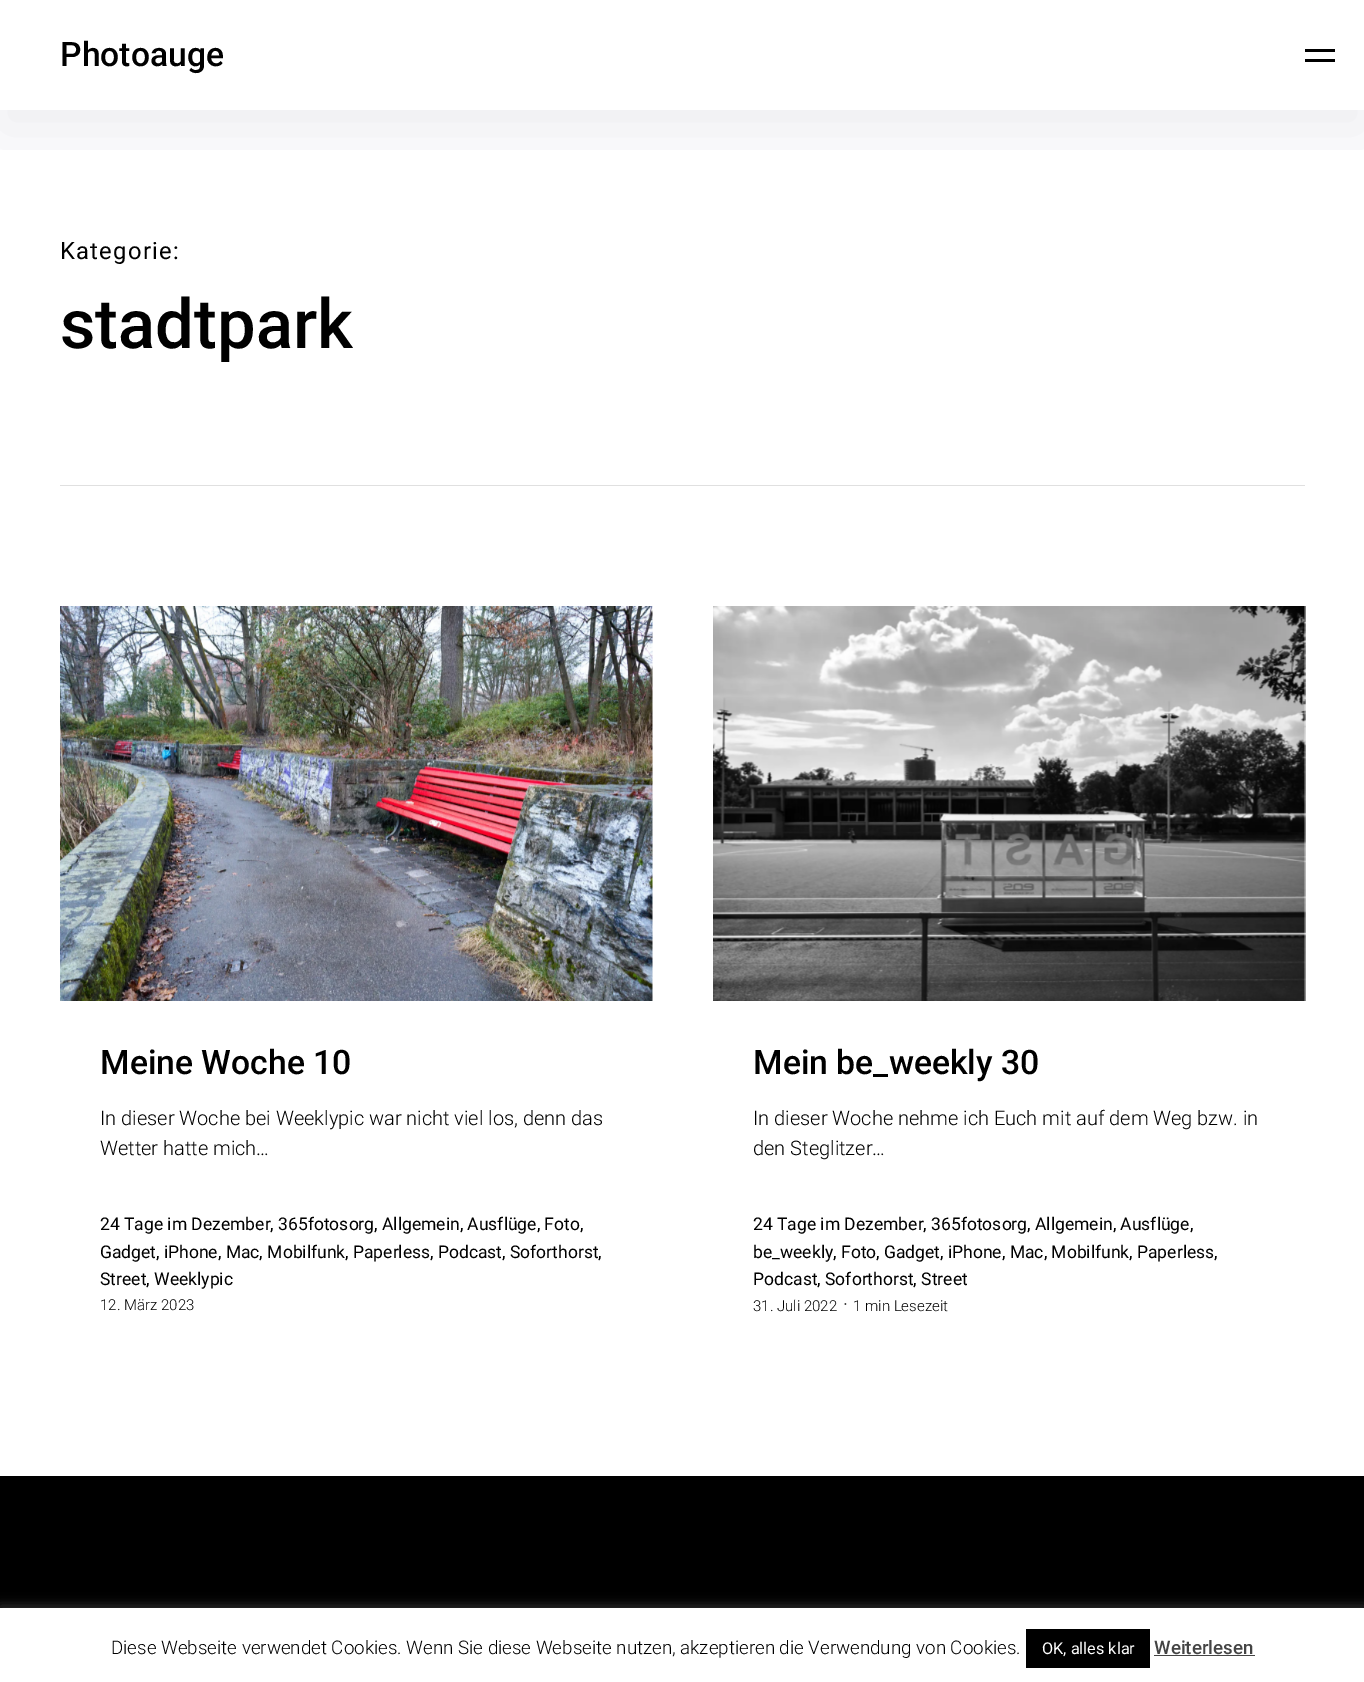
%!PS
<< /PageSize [1364 1682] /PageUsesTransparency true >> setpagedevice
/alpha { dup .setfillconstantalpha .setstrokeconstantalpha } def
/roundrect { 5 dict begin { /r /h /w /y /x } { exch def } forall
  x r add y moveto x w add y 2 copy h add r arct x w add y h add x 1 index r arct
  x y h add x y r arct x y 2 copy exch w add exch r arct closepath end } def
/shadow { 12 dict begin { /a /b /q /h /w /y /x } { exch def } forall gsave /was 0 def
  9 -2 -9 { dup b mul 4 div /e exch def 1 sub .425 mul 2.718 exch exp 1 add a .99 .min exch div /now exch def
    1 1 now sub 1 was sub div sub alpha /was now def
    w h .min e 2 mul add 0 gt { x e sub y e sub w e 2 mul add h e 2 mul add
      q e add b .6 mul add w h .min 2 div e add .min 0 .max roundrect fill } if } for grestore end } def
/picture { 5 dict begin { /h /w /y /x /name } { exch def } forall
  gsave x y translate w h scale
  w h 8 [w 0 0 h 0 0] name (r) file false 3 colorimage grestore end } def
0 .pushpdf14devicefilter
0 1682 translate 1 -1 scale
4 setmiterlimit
1 setgray
0 0 1364 1682 rectfill
gsave
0 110 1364 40 rectclip
0.122 0.125 0.267 setrgbcolor
0 20 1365 110 0 30 0.08 shadow
grestore
/Roboto-Medium [33.75 0 0 -33.75 0 0] selectfont
0 setgray
60 66 moveto (Photoauge) show
1305 49 30 3 rectfill
1305 59 30 3 rectfill
0.878 setgray
60 485 1245 1 rectfill
/Roboto-Regular [23.75 0 0 -23.75 0 0] selectfont
0 setgray
60 259 moveto 1.25 0 (Kategorie:) ashow
/Roboto-Medium [68.75 0 0 -68.75 0 0] selectfont
60 348 moveto (stadtpark) show
(img1.rgb) 60 606 593 395 picture
/Roboto-Medium [33.75 0 0 -33.75 0 0] selectfont
100 1074 moveto (Meine Woche 10) show
/Roboto-Light [20 0 0 -20 0 0] selectfont
100 1125 moveto (In dieser Woche bei Weeklypic war nicht viel los, denn das) show
100 1155 moveto (Wetter hatte mich…) show
/Roboto-Regular [17.5 0 0 -17.5 0 0] selectfont
100 1230 moveto (24 Tage im Dezember, 365fotosorg, Allgemein, Ausflüge, Foto,) show
100 1258 moveto (Gadget, iPhone, Mac, Mobilfunk, Paperless, Podcast, Soforthorst,) show
100 1285 moveto (Street, Weeklypic) show
/Roboto-Light [15 0 0 -15 0 0] selectfont
100 1310 moveto (12. März 2023) show
(img2.rgb) 713 606 593 395 picture
/Roboto-Medium [33.75 0 0 -33.75 0 0] selectfont
753 1074 moveto (Mein be_weekly 30) show
/Roboto-Light [20 0 0 -20 0 0] selectfont
753 1125 moveto (In dieser Woche nehme ich Euch mit auf dem Weg bzw. in) show
753 1155 moveto (den Steglitzer…) show
/Roboto-Regular [17.5 0 0 -17.5 0 0] selectfont
753 1230 moveto (24 Tage im Dezember, 365fotosorg, Allgemein, Ausflüge,) show
753 1258 moveto (be_weekly, Foto, Gadget, iPhone, Mac, Mobilfunk, Paperless,) show
753 1285 moveto (Podcast, Soforthorst, Street) show
/Roboto-Light [15 0 0 -15 0 0] selectfont
753 1311 moveto (31. Juli 2022) show
/Roboto-Light [20 0 0 -20 0 0] selectfont
843 1311 moveto (·) show
/Roboto-Light [15 0 0 -15 0 0] selectfont
853 1311 moveto (1 min Lesezeit) show
0 1476 1364 132 rectfill
0.675 0.671 0.671 setrgbcolor
0 1606 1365 75 0 6 0.3 shadow
1 setgray
0 1608 1364 74 rectfill
/Roboto-Light [18.75 0 0 -18.75 0 0] selectfont
0 setgray
111 1654 moveto (Diese Webseite verwendet Cookies. Wenn Sie diese Webseite nutzen, akzeptieren die Verwendung von Cookies.) show
1026 1629 124 39 rectfill
/Roboto-Regular [16.25 0 0 -16.25 0 0] selectfont
1 setgray
1042 1654 moveto (OK, alles klar) show
/Roboto-Medium [18.75 0 0 -18.75 0 0] selectfont
0.267 setgray
1154 1654 moveto (Weiterlesen) show
1154 1655 101 1 rectfill
.poppdf14devicefilter showpage
